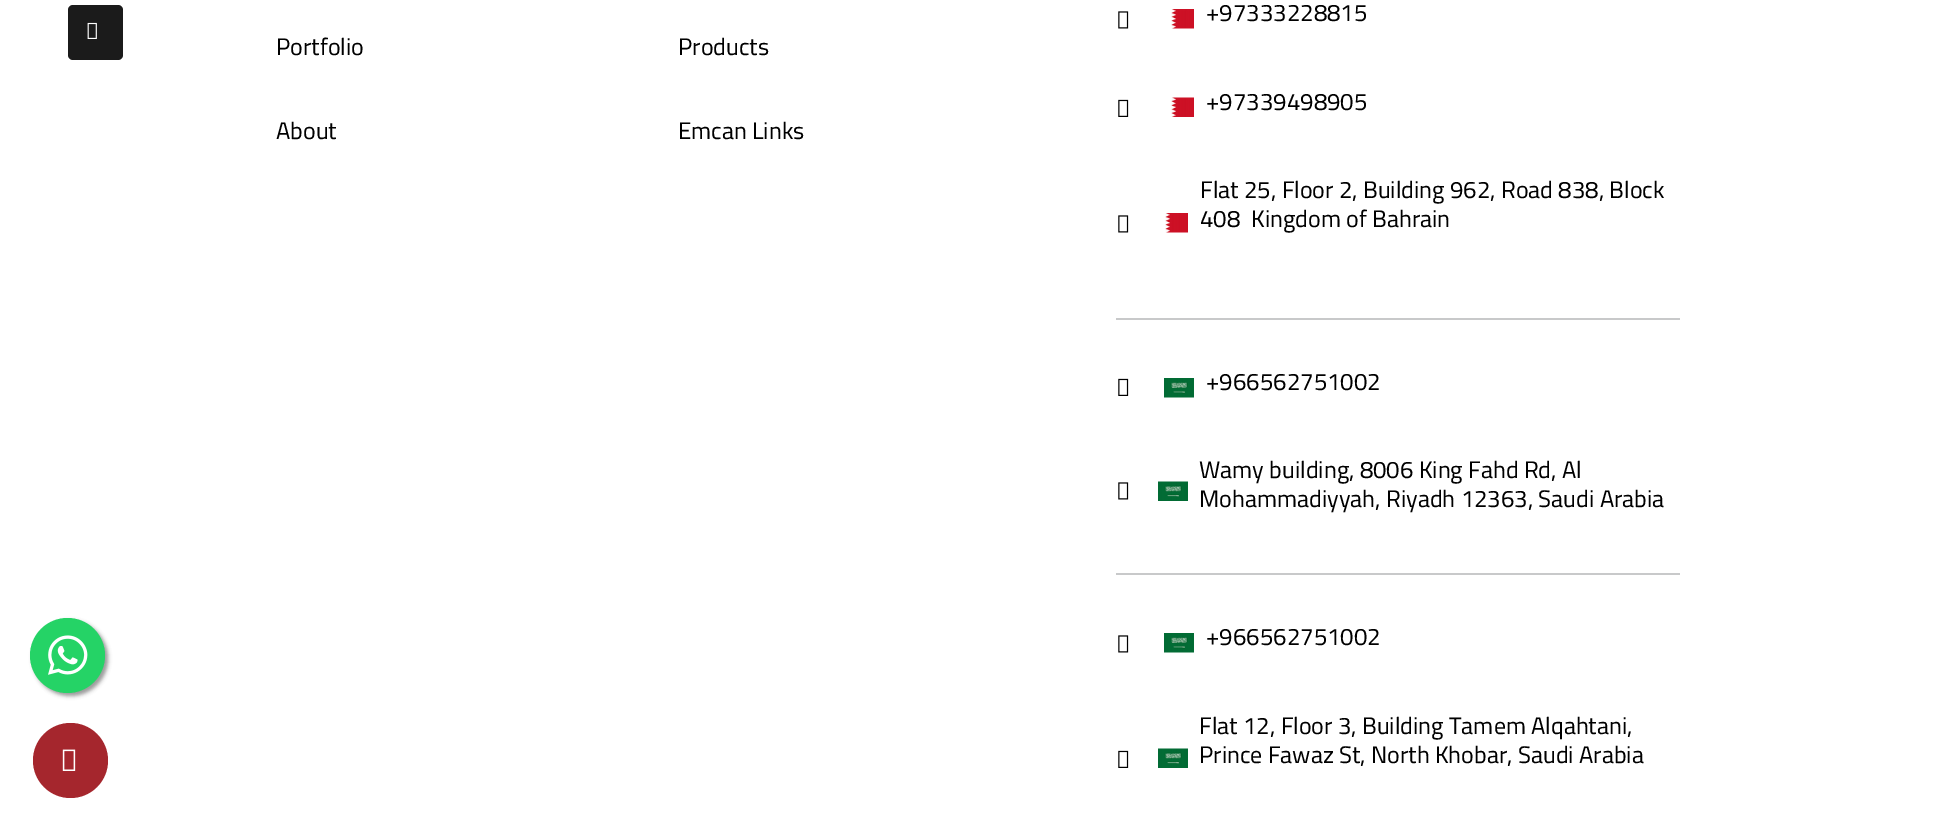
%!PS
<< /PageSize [1956 827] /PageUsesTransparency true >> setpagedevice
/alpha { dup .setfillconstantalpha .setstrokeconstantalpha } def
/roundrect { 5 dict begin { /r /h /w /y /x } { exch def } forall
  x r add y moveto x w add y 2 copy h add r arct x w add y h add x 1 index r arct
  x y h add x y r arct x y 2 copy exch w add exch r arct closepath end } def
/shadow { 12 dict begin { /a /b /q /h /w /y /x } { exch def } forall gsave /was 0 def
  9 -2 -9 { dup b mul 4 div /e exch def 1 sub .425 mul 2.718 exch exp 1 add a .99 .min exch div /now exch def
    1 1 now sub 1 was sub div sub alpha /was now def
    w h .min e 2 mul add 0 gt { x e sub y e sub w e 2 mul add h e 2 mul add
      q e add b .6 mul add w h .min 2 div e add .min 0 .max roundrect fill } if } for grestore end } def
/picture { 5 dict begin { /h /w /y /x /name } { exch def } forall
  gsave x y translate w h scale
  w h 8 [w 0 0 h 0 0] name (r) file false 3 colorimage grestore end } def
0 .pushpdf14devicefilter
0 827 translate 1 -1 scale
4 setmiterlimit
1 setgray
0 0 1956 827 rectfill
0.106 setgray
68 5 55 55 5 roundrect fill
(img1.rgb) 87 22 10 17 picture
/Cairo-Regular [24 0 0 -24 0 0] selectfont
0 setgray
276 55 moveto (Portfolio) show
276 139 moveto (About) show
678 55 moveto (Products) show
678 139 moveto (Emcan Links) show
(img2.rgb) 1118 11 11 18 picture
(img3.rgb) 1171 9 23 20 picture
1206 21 moveto (+97333228815) show
(img4.rgb) 1118 99 11 18 picture
(img5.rgb) 1171 97 23 20 picture
1206 110 moveto (+97339498905) show
(img2.rgb) 1118 215 11 18 picture
(img6.rgb) 1165 213 23 20 picture
1200 198 moveto (Flat 25, Floor 2, Building 962, Road 838, Block) show
1200 227 moveto (408  Kingdom of Bahrain) show
0.784 0.788 0.792 setrgbcolor
1116 318 564 2 rectfill
(img4.rgb) 1118 378 11 18 picture
(img7.rgb) 1164 378 30 20 picture
0 setgray
1206 390 moveto (+966562751002) show
(img2.rgb) 1118 482 11 18 picture
(img8.rgb) 1158 481 30 20 picture
1199 478 moveto (Wamy building, 8006 King Fahd Rd, Al) show
1199 507 moveto (Mohammadiyyah, Riyadh 12363, Saudi Arabia) show
0.784 0.788 0.792 setrgbcolor
1116 573 564 2 rectfill
(img2.rgb) 1118 635 11 18 picture
(img7.rgb) 1164 633 30 20 picture
0 setgray
1206 645 moveto (+966562751002) show
(img4.rgb) 1118 750 11 18 picture
(img8.rgb) 1158 748 30 20 picture
1199 734 moveto (Flat 12, Floor 3, Building Tamem Alqahtani,) show
1199 763 moveto (Prince Fawaz St, North Khobar, Saudi Arabia) show
0.6 setgray
33 621 75 75 37.5 2 1 shadow
0.145 0.827 0.4 setrgbcolor
newpath 67.5 655.5 37.5 0 360 arc closepath fill
(img9.rgb) 48 635 40 40 picture
0.647 0.149 0.176 setrgbcolor
newpath 70.5 760.5 37.5 0 360 arc closepath fill
(img10.rgb) 62 749 14 22 picture
.poppdf14devicefilter showpage
